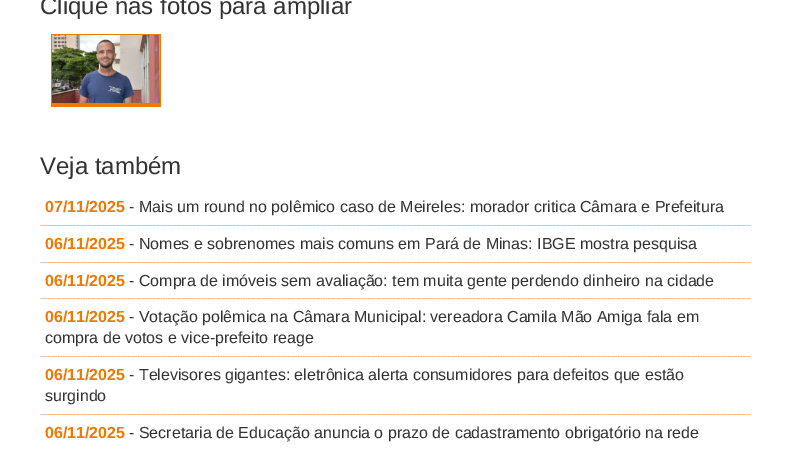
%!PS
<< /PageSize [791 451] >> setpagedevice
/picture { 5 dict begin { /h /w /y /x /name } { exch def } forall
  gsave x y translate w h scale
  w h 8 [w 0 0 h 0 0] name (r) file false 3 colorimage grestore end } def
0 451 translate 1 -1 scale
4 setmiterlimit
1 setgray
0 0 791 451 rectfill
/LiberationSans-Regular [24 0 0 -24 0 0] selectfont
0.2 setgray
40 14 moveto (Clique nas fotos para ampliar) show
0.941 0.475 0 setrgbcolor
51 34 110 1 rectfill
160 34 1 73 rectfill
51 103 110 4 rectfill
51 34 1 73 rectfill
(img1.rgb) 52 35 108 68 picture
0.2 setgray
40 174 moveto (Veja também) show
(img2.rgb) 40 225 711 1 picture
/LiberationSans-Bold [16 0 0 -16 0 0] selectfont
0.941 0.475 0 setrgbcolor
45 212 moveto (07/11/2025) show
/LiberationSans-Regular [16 0 0 -16 0 0] selectfont
0.2 setgray
129 212 moveto (- Mais um round no polêmico caso de Meireles: morador critica Câmara e Prefeitura) show
(img2.rgb) 40 262 711 1 picture
/LiberationSans-Bold [16 0 0 -16 0 0] selectfont
0.941 0.475 0 setrgbcolor
45 249 moveto (06/11/2025) show
/LiberationSans-Regular [16 0 0 -16 0 0] selectfont
0.2 setgray
129 249 moveto (- Nomes e sobrenomes mais comuns em Pará de Minas: IBGE mostra pesquisa) show
(img2.rgb) 40 298 711 1 picture
/LiberationSans-Bold [16 0 0 -16 0 0] selectfont
0.941 0.475 0 setrgbcolor
45 286 moveto (06/11/2025) show
/LiberationSans-Regular [16 0 0 -16 0 0] selectfont
0.2 setgray
129 286 moveto (- Compra de imóveis sem avaliação: tem muita gente perdendo dinheiro na cidade) show
(img2.rgb) 40 356 711 1 picture
/LiberationSans-Bold [16 0 0 -16 0 0] selectfont
0.941 0.475 0 setrgbcolor
45 322 moveto (06/11/2025) show
/LiberationSans-Regular [16 0 0 -16 0 0] selectfont
0.2 setgray
129 322 moveto (- Votação polêmica na Câmara Municipal: vereadora Camila Mão Amiga fala em) show
45 343 moveto (compra de votos e vice-prefeito reage) show
(img2.rgb) 40 414 711 1 picture
/LiberationSans-Bold [16 0 0 -16 0 0] selectfont
0.941 0.475 0 setrgbcolor
45 380 moveto (06/11/2025) show
/LiberationSans-Regular [16 0 0 -16 0 0] selectfont
0.2 setgray
129 380 moveto (- Televisores gigantes: eletrônica alerta consumidores para defeitos que estão) show
45 401 moveto (surgindo) show
/LiberationSans-Bold [16 0 0 -16 0 0] selectfont
0.941 0.475 0 setrgbcolor
45 438 moveto (06/11/2025) show
/LiberationSans-Regular [16 0 0 -16 0 0] selectfont
0.2 setgray
129 438 moveto (- Secretaria de Educação anuncia o prazo de cadastramento obrigatório na rede) show
showpage
